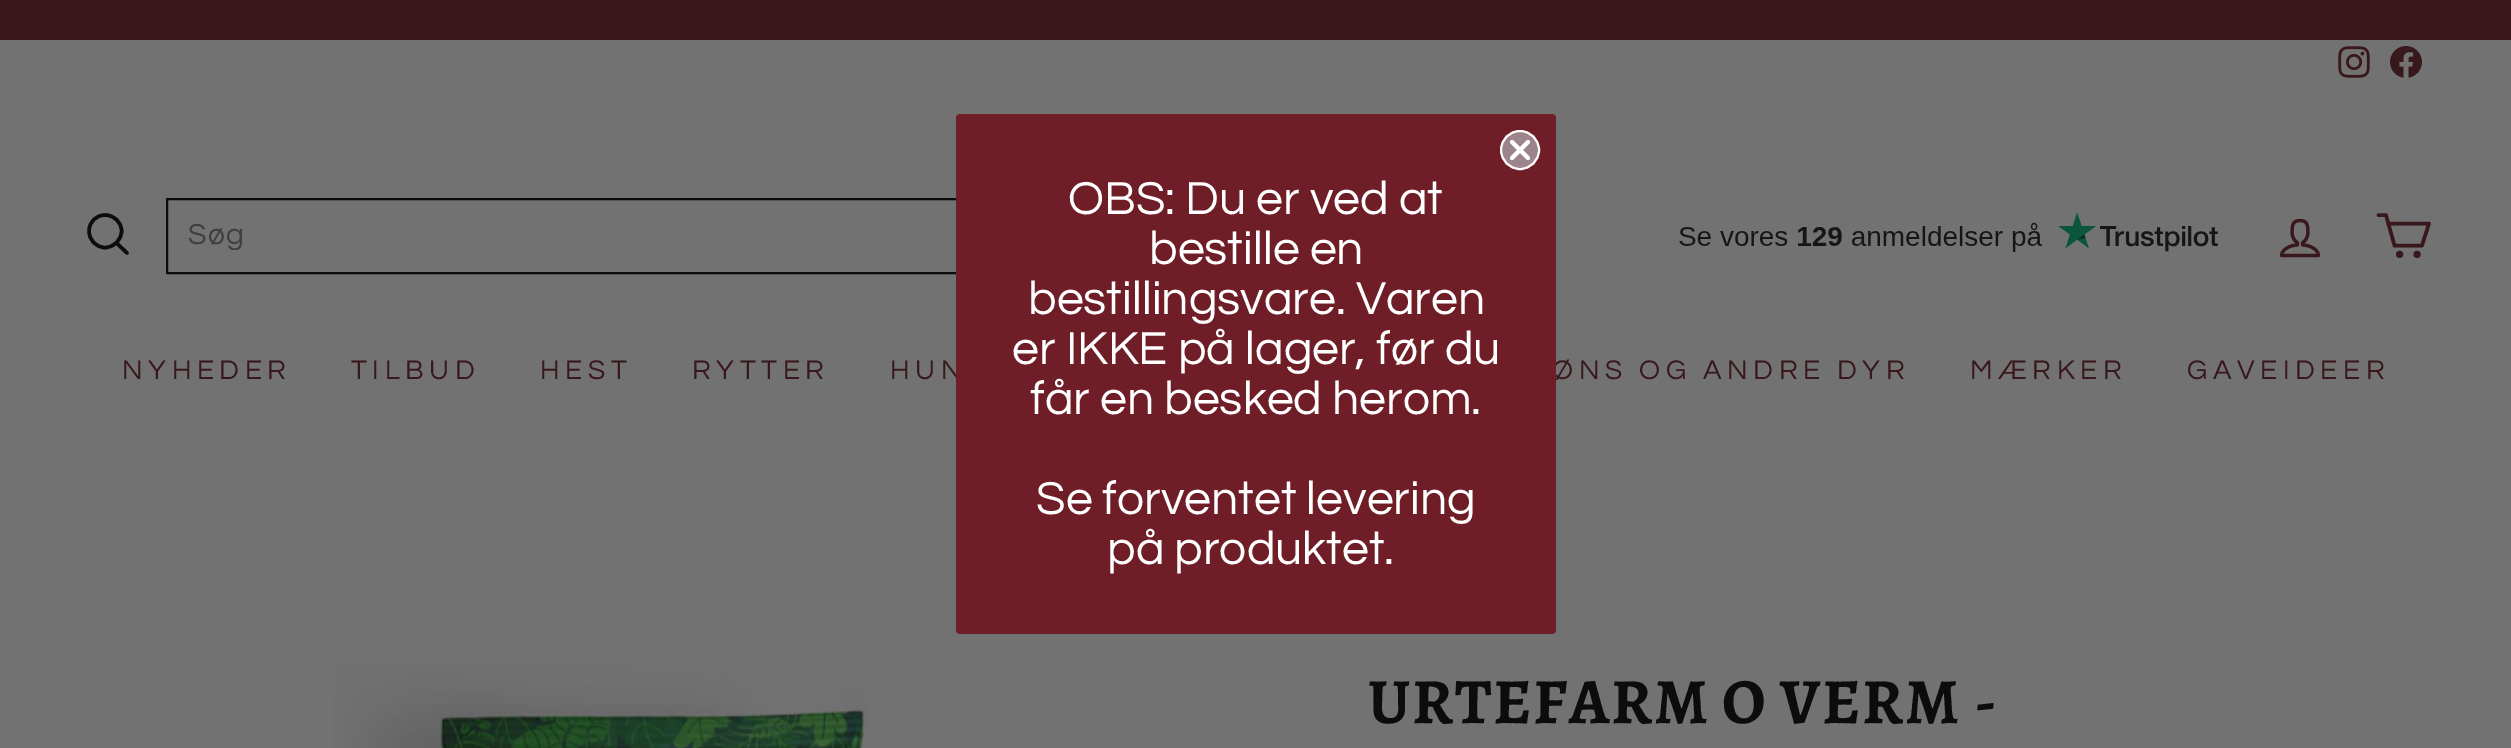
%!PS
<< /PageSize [2511 748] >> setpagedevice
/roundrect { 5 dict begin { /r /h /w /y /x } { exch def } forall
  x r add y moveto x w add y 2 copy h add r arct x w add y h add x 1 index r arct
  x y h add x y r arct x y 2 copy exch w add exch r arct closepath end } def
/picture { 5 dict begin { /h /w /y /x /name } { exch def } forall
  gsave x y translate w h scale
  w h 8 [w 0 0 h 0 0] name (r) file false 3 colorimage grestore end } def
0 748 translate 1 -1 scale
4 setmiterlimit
0.447 setgray
0 0 2511 748 rectfill
0.047 setgray
2 setlinewidth
167 199 828 74 rectstroke
/Questrial-Regular [28 0 0 -28 0 0] selectfont
0.22 0.094 0.11 setrgbcolor
890 379 moveto 5.6 0 (HUN) ashow
1552 379 moveto 5.6 0 (ØNS OG ANDRE DYR) ashow
0.435 0.118 0.153 setrgbcolor
956 114 600 520 4 roundrect fill
0.612 0.518 0.549 setrgbcolor
newpath 1520 150 19 0 360 arc closepath gsave fill grestore
1 setgray
stroke
4 setlinewidth
1 setlinecap
1 setlinejoin
newpath 1512 142 moveto 1528 158 lineto 1512 158 moveto 1528 142 lineto closepath stroke
/Questrial-Regular [48 0 0 -48 0 0] selectfont
1068 214 moveto (OBS: Du er ved at) show
1149 264 moveto (bestille en) show
1028 314 moveto (bestillingsvare. Varen) show
1012 364 moveto (er IKKE på lager, før du) show
1030 414 moveto (får en besked herom.) show
1036 514 moveto (Se forventet levering) show
1107 564 moveto (på produktet.) show
0.22 0.094 0.11 setrgbcolor
0 0 2511 40 rectfill
(img1.rgb) 2338 46 32 32 picture
(img2.rgb) 2390 46 32 32 picture
0.047 setgray
3.5 setlinewidth
newpath 121.5 231 moveto 121.5 240 114 247.5 105 247.5 curveto 96 247.5 89 240 89 231 curveto 89 222 96 215 105 215 curveto 114 215 121.5 222 121.5 231 curveto closepath 127 253 moveto 116.5 243 lineto stroke
gsave
188 220 778 30 rectclip
/Questrial-Regular [30 0 0 -30 0 0] selectfont
0.247 setgray
188 244 moveto 1.5 0 (Søg) ashow
grestore
(img3.rgb) 1679 212 539 40 picture
(img4.rgb) 2279 218 42 40 picture
0.22 0.094 0.11 setrgbcolor
newpath 2388 223.5 moveto 2429 223.5 lineto 2422 245.5 lineto 2394.5 245.5 lineto 2386 215 lineto 2378.5 215 lineto stroke
0 setlinecap
0 setlinejoin
newpath 2399.6 254.4 1.8 0 360 arc closepath stroke
newpath 2417.1 254.4 1.8 0 360 arc closepath stroke
/Questrial-Regular [28 0 0 -28 0 0] selectfont
122 379 moveto 5.6 0 (NYHEDER) ashow
351 379 moveto 5.6 0 (TILBUD) ashow
540 379 moveto 5.6 0 (HEST) ashow
692 379 moveto 5.6 0 (RYTTER) ashow
1970 379 moveto 5.6 0 (MÆRKER) ashow
2187 379 moveto 5.6 0 (GAVEIDEER) ashow
(img5.rgb) 333 664 536 84 picture
/Alegreya-Bold [64.5 0 0 -64.5 0 0] selectfont
0.047 setgray
1368 723 moveto 1.6 0 (URTEFARM O VERM -) ashow
showpage
